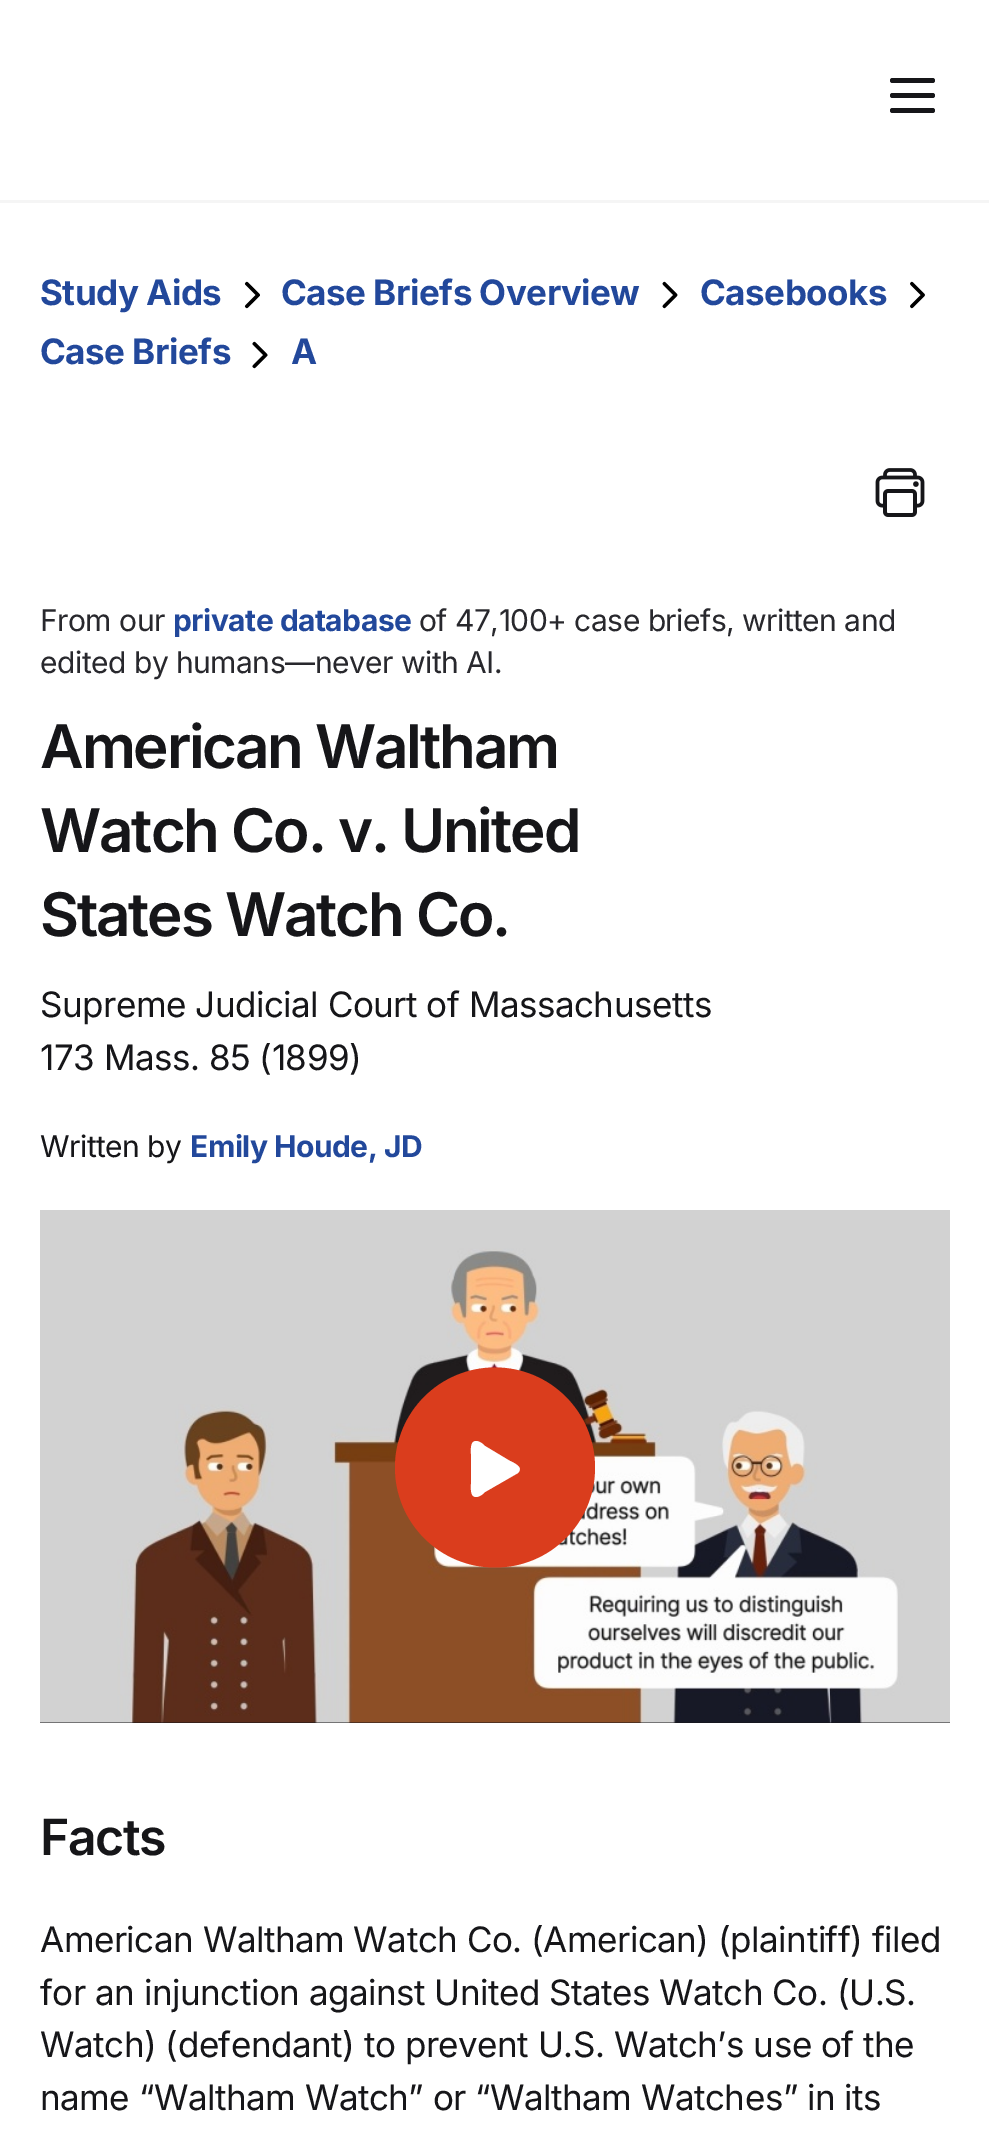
%!PS
<< /PageSize [989 2147] >> setpagedevice
/roundrect { 5 dict begin { /r /h /w /y /x } { exch def } forall
  x r add y moveto x w add y 2 copy h add r arct x w add y h add x 1 index r arct
  x y h add x y r arct x y 2 copy exch w add exch r arct closepath end } def
/picture { 5 dict begin { /h /w /y /x /name } { exch def } forall
  gsave x y translate w h scale
  w h 8 [w 0 0 h 0 0] name (r) file false 3 colorimage grestore end } def
0 2147 translate 1 -1 scale
4 setmiterlimit
1 setgray
0 0 989 2147 rectfill
0.961 setgray
0 200 989 3 rectfill
0.086 0.086 0.098 setrgbcolor
890 78 45 5 2.5 roundrect fill
890 93 45 5 2.5 roundrect fill
890 108 45 5 2.5 roundrect fill
/Inter-Bold [35 0 0 -35 0 0] selectfont
0.133 0.282 0.608 setrgbcolor
40 305 moveto -0.5 0 (Study Aids) ashow
(img1.rgb) 244 281 16 28 picture
281 305 moveto -0.5 0 (Case Briefs Overview) ashow
(img2.rgb) 662 281 16 28 picture
700 305 moveto -0.5 0 (Casebooks) ashow
(img3.rgb) 910 281 15 28 picture
40 364 moveto -0.5 0 (Case Briefs) ashow
(img4.rgb) 252 341 16 28 picture
291 364 moveto -0.5 0 (A) ashow
(img5.rgb) 875 468 50 49 picture
/Inter-Regular [30 0 0 -30 0 0] selectfont
0.157 0.157 0.176 setrgbcolor
40 631 moveto -0.5 0 (From our) ashow
/Inter-Bold [30 0 0 -30 0 0] selectfont
0.133 0.282 0.608 setrgbcolor
173 631 moveto -0.5 0 (private database) ashow
/Inter-Regular [30 0 0 -30 0 0] selectfont
0.157 0.157 0.176 setrgbcolor
419 631 moveto -0.5 0 (of 47,100+ case briefs, written and) ashow
40 673 moveto -0.5 0 (edited by humans—never with AI.) ashow
/Inter-SemiBold [60 0 0 -60 0 0] selectfont
0.086 0.086 0.098 setrgbcolor
40 768 moveto -2.1 0 (American Waltham) ashow
40 852 moveto -2.1 0 (Watch Co. v. United) ashow
40 936 moveto -2.1 0 (States Watch Co.) ashow
/Inter-Regular [35 0 0 -35 0 0] selectfont
40 1017 moveto -0.5 0 (Supreme Judicial Court of Massachusetts) ashow
40 1070 moveto -0.5 0 (173 Mass. 85 \(1899\)) ashow
/Inter-Regular [30 0 0 -30 0 0] selectfont
40 1157 moveto -0.5 0 (Written by) ashow
/Inter-Bold [30 0 0 -30 0 0] selectfont
0.133 0.282 0.608 setrgbcolor
190 1157 moveto -0.5 0 (Emily Houde, JD) ashow
0.086 0.086 0.098 setrgbcolor
40 1722 910 1 rectfill
(img6.rgb) 40 1210 910 513 picture
0.855 0.239 0.114 setrgbcolor
newpath 495 1467.5 100 0 360 arc closepath fill
1 setgray
newpath 476 1497 moveto 470 1497 471 1488 471 1484 curveto 471 1454 lineto 471 1450 470 1441 476 1441 curveto 480 1441 484 1445 485 1446 curveto 510 1461 lineto 514 1463 524 1467 518 1473 curveto 485 1492 lineto 484 1493 480 1497 476 1497 curveto closepath fill
/Inter-SemiBold [50 0 0 -50 0 0] selectfont
0.086 0.086 0.098 setrgbcolor
40 1855 moveto -1.5 0 (Facts) ashow
/Inter-Regular [35 0 0 -35 0 0] selectfont
40 1952 moveto -0.5 0 (American Waltham Watch Co. \(American\) \(plaintiff\) filed) ashow
40 2005 moveto -0.5 0 (for an injunction against United States Watch Co. \(U.S.) ashow
40 2057 moveto -0.5 0 (Watch\) \(defendant\) to prevent U.S. Watch’s use of the) ashow
40 2110 moveto -0.5 0 (name “Waltham Watch” or “Waltham Watches” in its) ashow
showpage
